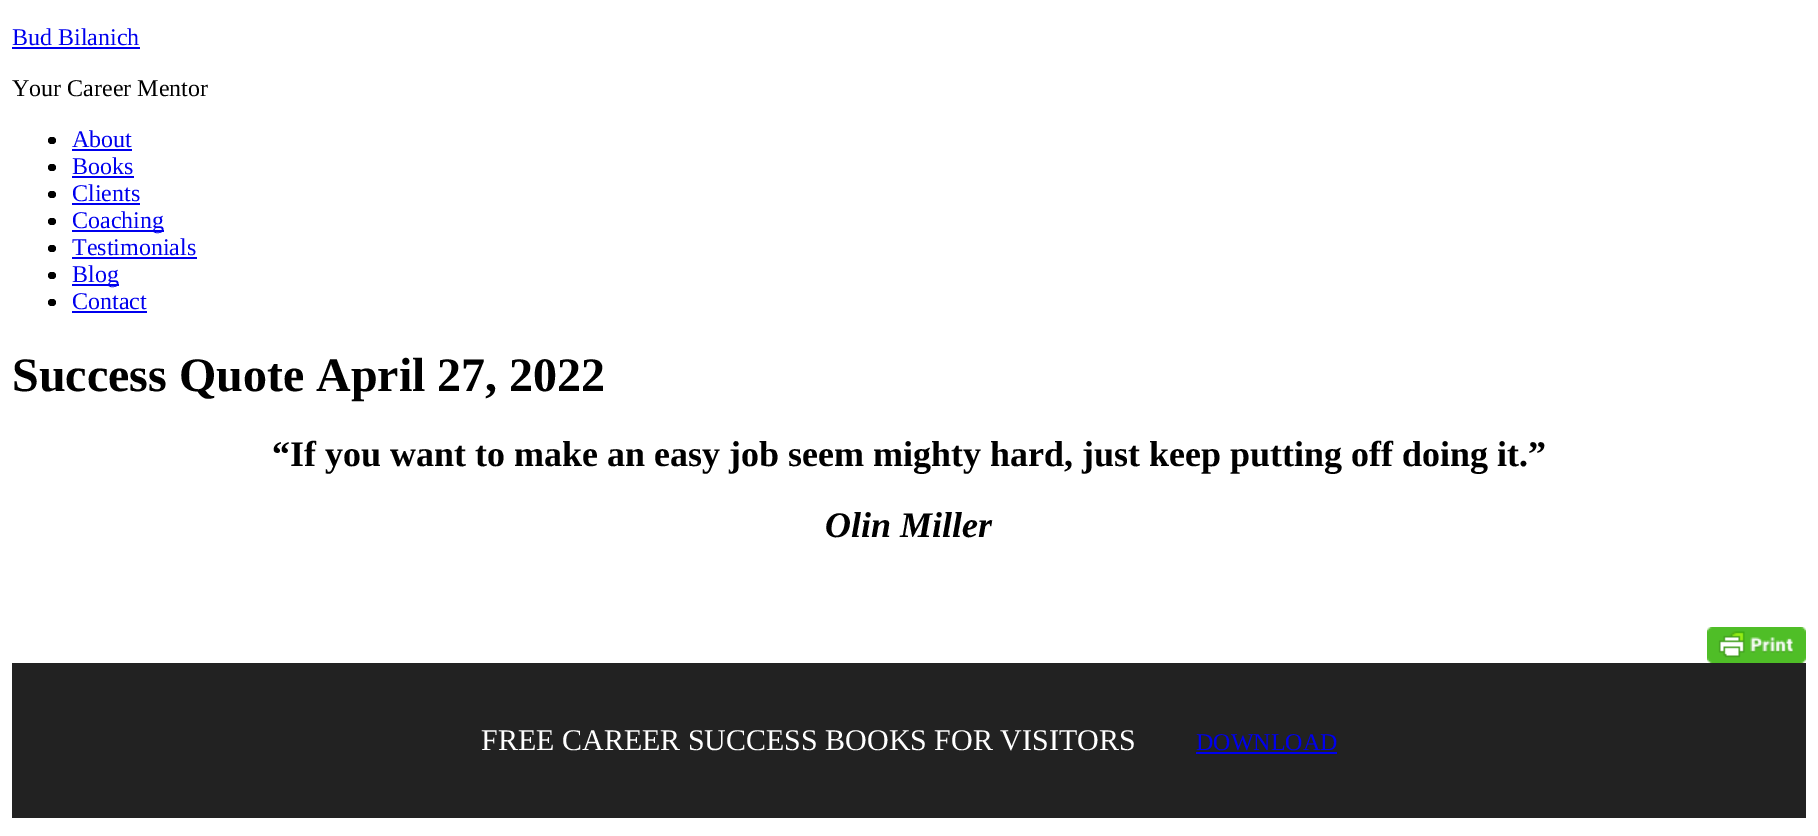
%!PS
<< /PageSize [1818 836] >> setpagedevice
/roundrect { 5 dict begin { /r /h /w /y /x } { exch def } forall
  x r add y moveto x w add y 2 copy h add r arct x w add y h add x 1 index r arct
  x y h add x y r arct x y 2 copy exch w add exch r arct closepath end } def
/picture { 5 dict begin { /h /w /y /x /name } { exch def } forall
  gsave x y translate w h scale
  w h 8 [w 0 0 h 0 0] name (r) file false 3 colorimage grestore end } def
0 836 translate 1 -1 scale
4 setmiterlimit
1 setgray
0 0 1818 836 rectfill
/LiberationSerif-Regular [24 0 0 -24 0 0] selectfont
0 0 0.933 setrgbcolor
12 45 moveto (Bud Bilanich) show
12 47 128 2 rectfill
0 setgray
12 96 moveto (Your Career Mentor) show
48 137 8 7 3.5 roundrect fill
0 0 0.933 setrgbcolor
72 147 moveto (About) show
72 149 60 2 rectfill
0 setgray
48 164 8 7 3.5 roundrect fill
0 0 0.933 setrgbcolor
72 174 moveto (Books) show
72 176 62 2 rectfill
0 setgray
48 191 8 7 3.5 roundrect fill
0 0 0.933 setrgbcolor
72 201 moveto (Clients) show
72 203 68 2 rectfill
0 setgray
48 218 8 7 3.5 roundrect fill
0 0 0.933 setrgbcolor
72 230 92 2 rectfill
72 228 moveto (Coaching) show
0 setgray
48 245 8 7 3.5 roundrect fill
0 0 0.933 setrgbcolor
72 255 moveto (Testimonials) show
72 257 125 2 rectfill
0 setgray
48 272 8 7 3.5 roundrect fill
0 0 0.933 setrgbcolor
72 284 47 2 rectfill
72 282 moveto (Blog) show
0 setgray
48 299 8 7 3.5 roundrect fill
0 0 0.933 setrgbcolor
72 309 moveto (Contact) show
72 311 75 2 rectfill
/LiberationSerif-Bold [48 0 0 -48 0 0] selectfont
0 setgray
12 391 moveto (Success Quote April 27, 2022) show
/LiberationSerif-Bold [36 0 0 -36 0 0] selectfont
272 466 moveto (“If you want to make an easy job seem mighty hard, just keep putting off doing it.”) show
/LiberationSerif-BoldItalic [36 0 0 -36 0 0] selectfont
825 537 moveto (Olin Miller) show
(img1.rgb) 1707 627 99 36 picture
0.133 setgray
12 663 1794 155 rectfill
/LiberationSerif-Regular [30 0 0 -30 0 0] selectfont
1 setgray
481 750 moveto (FREE CAREER SUCCESS BOOKS FOR VISITORS) show
/LiberationSerif-Regular [24 0 0 -24 0 0] selectfont
0 0 0.933 setrgbcolor
1196 750 moveto (DOWNLOAD) show
1196 752 141 2 rectfill
showpage
